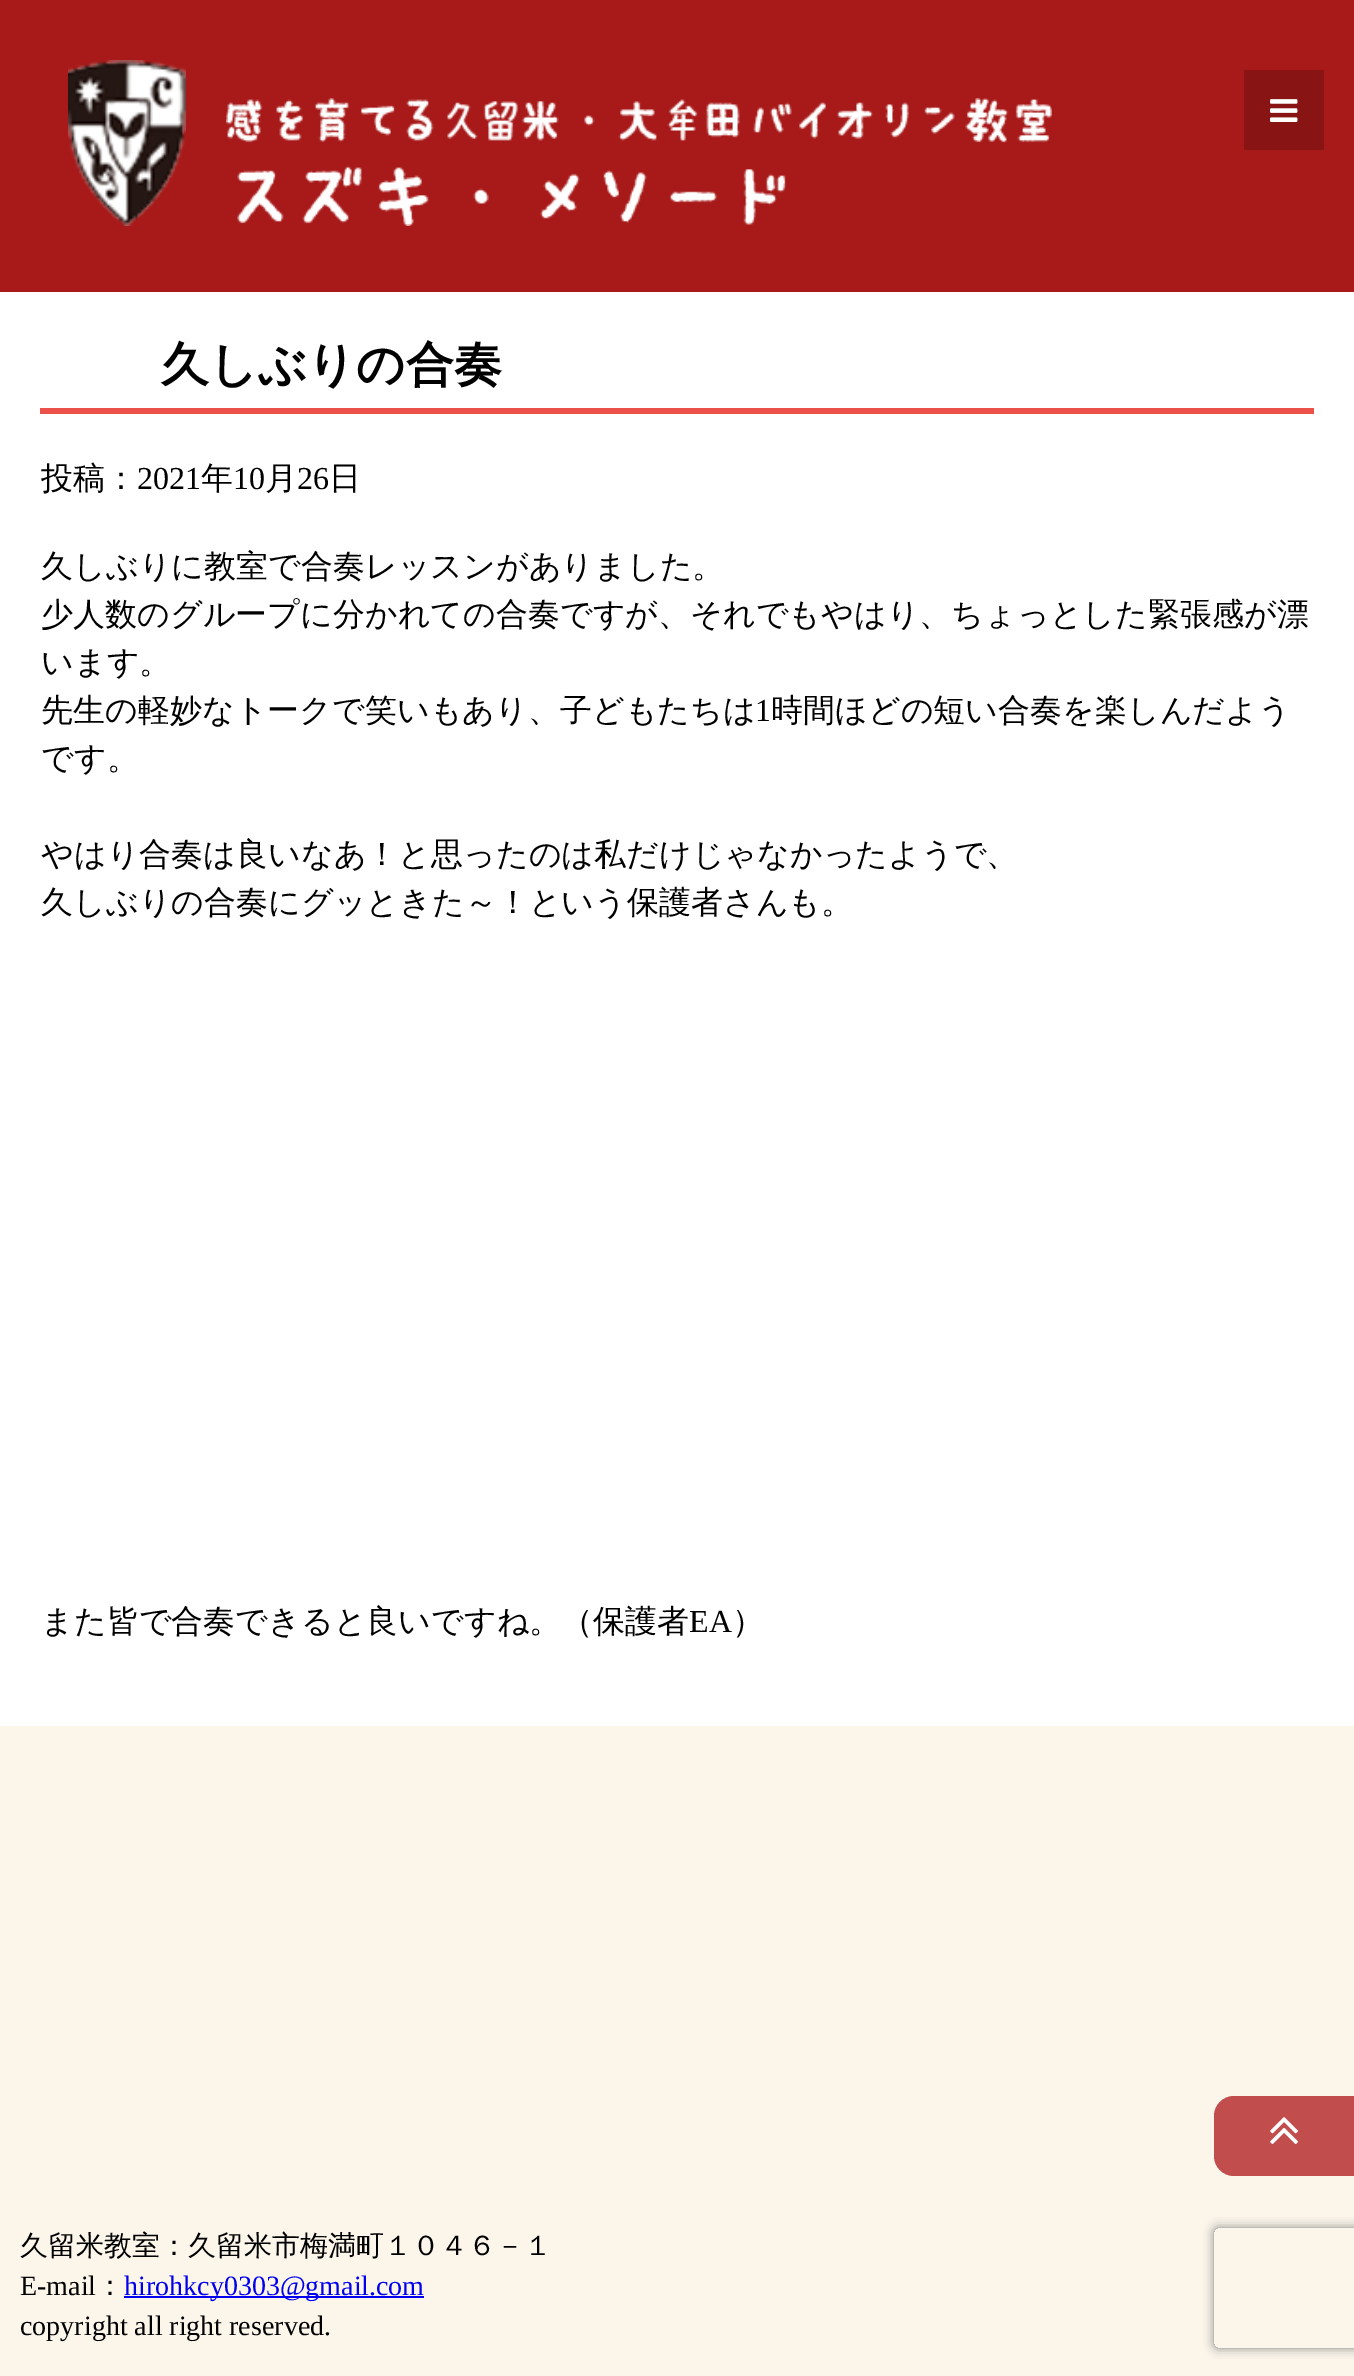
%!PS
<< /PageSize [1354 2376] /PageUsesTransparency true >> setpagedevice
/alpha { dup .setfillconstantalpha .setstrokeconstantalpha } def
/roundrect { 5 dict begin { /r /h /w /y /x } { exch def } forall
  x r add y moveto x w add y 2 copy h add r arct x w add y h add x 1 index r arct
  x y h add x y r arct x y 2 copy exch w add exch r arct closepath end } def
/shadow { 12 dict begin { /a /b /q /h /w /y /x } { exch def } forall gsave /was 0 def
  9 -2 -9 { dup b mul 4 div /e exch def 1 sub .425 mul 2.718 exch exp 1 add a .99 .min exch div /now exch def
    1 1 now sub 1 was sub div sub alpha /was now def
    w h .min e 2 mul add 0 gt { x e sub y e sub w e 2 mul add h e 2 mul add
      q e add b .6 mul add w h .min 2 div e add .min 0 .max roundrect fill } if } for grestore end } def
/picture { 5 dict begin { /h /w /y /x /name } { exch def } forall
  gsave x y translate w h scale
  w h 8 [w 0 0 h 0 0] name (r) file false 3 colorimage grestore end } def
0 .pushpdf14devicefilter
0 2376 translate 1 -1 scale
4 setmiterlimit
0.984 0.961 0.918 setrgbcolor
0 0 1354 2376 rectfill
0.659 0.102 0.102 setrgbcolor
0 0 1354 292 rectfill
(img1.rgb) 68 60 118 166 picture
(img2.rgb) 226 98 826 128 picture
0.533 0.078 0.078 setrgbcolor
1244 70 80 80 rectfill
(img3.rgb) 1270 99 28 23 picture
1 setgray
0 292 1354 1434 rectfill
0.922 0.318 0.29 setrgbcolor
40 408 1274 6 rectfill
/WenQuanYiZenHei-Bold [48 0 0 -48 0 0] selectfont
0 setgray
161 381 moveto (久しぶりの合奏) show
/WenQuanYiZenHei-Medium [32 0 0 -32 0 0] selectfont
41 489 moveto (投稿：) show
/LiberationSerif-Regular [32 0 0 -32 0 0] selectfont
137 489 moveto (2021) show
/WenQuanYiZenHei-Medium [32 0 0 -32 0 0] selectfont
201 489 moveto (年) show
/LiberationSerif-Regular [32 0 0 -32 0 0] selectfont
233 489 moveto (10) show
/WenQuanYiZenHei-Medium [32 0 0 -32 0 0] selectfont
265 489 moveto (月) show
/LiberationSerif-Regular [32 0 0 -32 0 0] selectfont
297 489 moveto (26) show
/WenQuanYiZenHei-Medium [32 0 0 -32 0 0] selectfont
329 489 moveto (日) show
41 577 moveto (久しぶりに教室で合奏レッスンがありました。) show
41 625 moveto (少人数のグループに分かれての合奏ですが、それでもやはり、ちょっとした緊張感が漂) show
41 673 moveto (います。) show
41 721 moveto (先生の軽妙なトークで笑いもあり、子どもたちは) show
/LiberationSerif-Regular [32 0 0 -32 0 0] selectfont
755 721 moveto (1) show
/WenQuanYiZenHei-Medium [32 0 0 -32 0 0] selectfont
771 721 moveto (時間ほどの短い合奏を楽しんだよう) show
41 769 moveto (です。) show
41 865 moveto (やはり合奏は良いなあ！と思ったのは私だけじゃなかったようで、) show
41 913 moveto (久しぶりの合奏にグッときた～！という保護者さんも。) show
41 1632 moveto (また皆で合奏できると良いですね。（保護者) show
/LiberationSerif-Regular [32 0 0 -32 0 0] selectfont
689 1632 moveto (EA) show
/WenQuanYiZenHei-Medium [32 0 0 -32 0 0] selectfont
732 1632 moveto (）) show
0.757 0.302 0.302 setrgbcolor
newpath 1234 2096 moveto 1354 2096 lineto 1354 2176 lineto 1234 2176 lineto 1223 2176 1214 2167 1214 2156 curveto 1214 2116 lineto 1214 2105 1223 2096 1234 2096 curveto closepath fill
(img4.rgb) 1270 2117 28 27 picture
/WenQuanYiZenHei-Medium [28 0 0 -28 0 0] selectfont
0 setgray
20 2255 moveto (久留米教室：久留米市梅満町１０４６－１) show
/LiberationSerif-Regular [28 0 0 -28 0 0] selectfont
20 2295 moveto (E-mail) show
/WenQuanYiZenHei-Medium [28 0 0 -28 0 0] selectfont
96 2295 moveto (：) show
0 0 0.933 setrgbcolor
124 2296 300 2 rectfill
/LiberationSerif-Regular [28 0 0 -28 0 0] selectfont
124 2295 moveto (hirohkcy0303@gmail.com) show
0 setgray
20 2335 moveto (copyright all right reserved.) show
gsave
newpath 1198 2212 moveto 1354 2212 lineto 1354 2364 lineto 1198 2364 lineto closepath 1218 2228 moveto 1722 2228 lineto 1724 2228 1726 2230 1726 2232 curveto 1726 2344 lineto 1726 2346 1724 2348 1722 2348 curveto 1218 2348 lineto 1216 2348 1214 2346 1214 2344 curveto 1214 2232 lineto 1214 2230 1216 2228 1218 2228 curveto closepath eoclip newpath
0.502 setgray
1214 2228 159 120 4 5 1 shadow
grestore
.poppdf14devicefilter showpage
